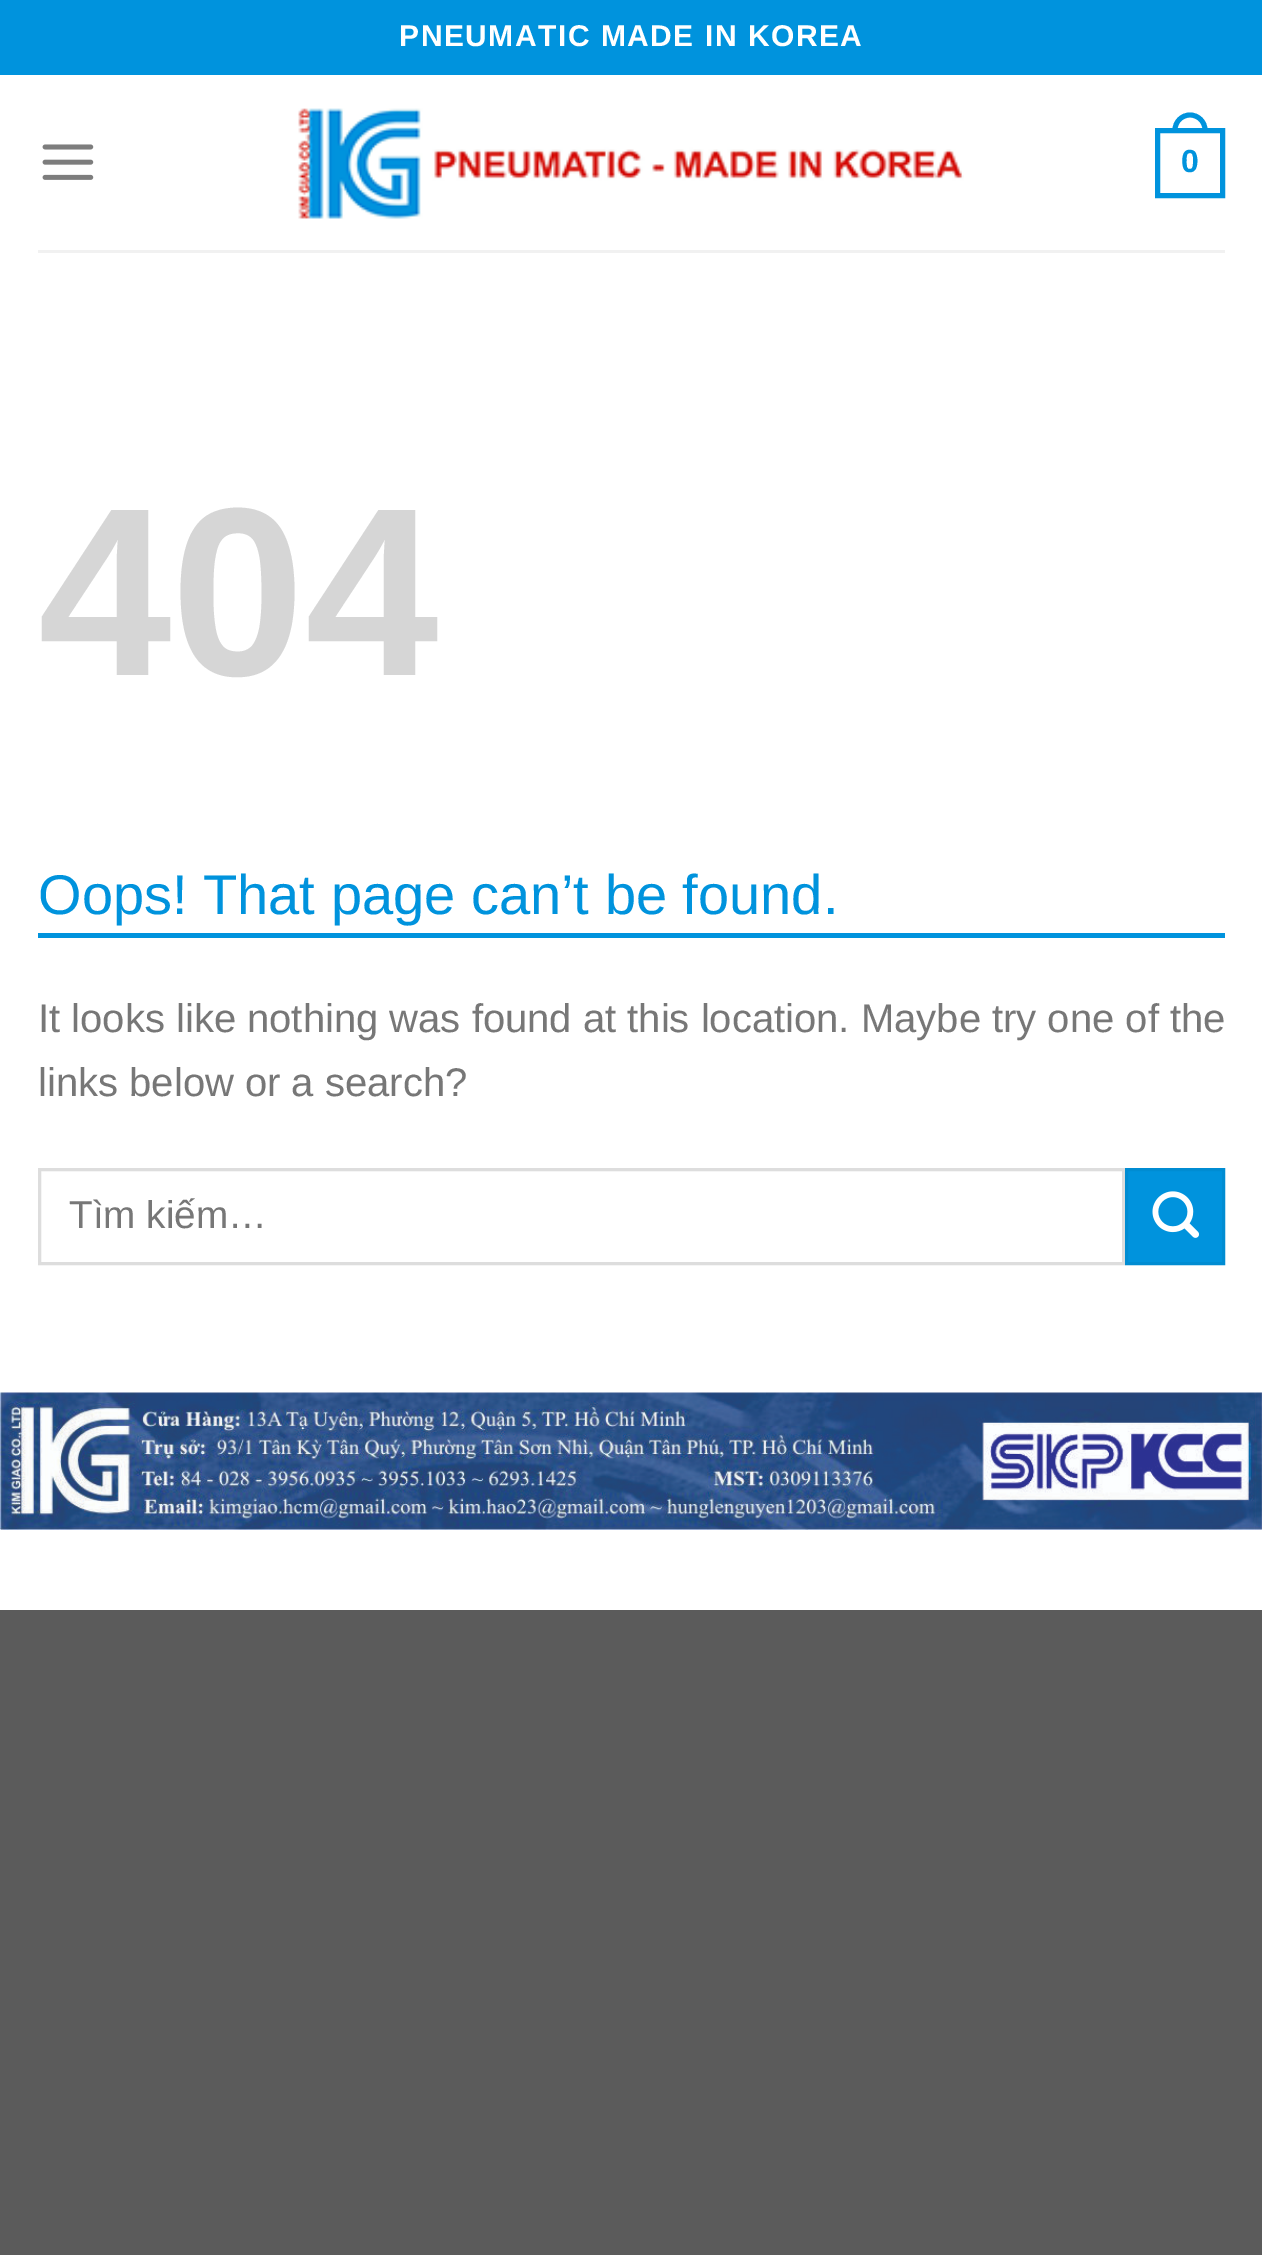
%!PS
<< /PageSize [1262 2255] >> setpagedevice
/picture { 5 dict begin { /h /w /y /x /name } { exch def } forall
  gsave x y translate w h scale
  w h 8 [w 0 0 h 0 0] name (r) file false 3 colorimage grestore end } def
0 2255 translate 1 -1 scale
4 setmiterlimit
0.357 setgray
0 0 1262 2255 rectfill
1 setgray
0 75 1262 1535 rectfill
0 0.576 0.867 setrgbcolor
0 0 1262 75 rectfill
/LiberationSans-Bold [30 0 0 -30 0 0] selectfont
1 setgray
399 46 moveto 1.5 0 (PNEUMATIC MADE IN KOREA) ashow
(img1.rgb) 42 144 52 36 picture
(img2.rgb) 298 108 666 111 picture
0 0.576 0.867 setrgbcolor
5 setlinewidth
1157.5 130.5 65 65 rectstroke
newpath 1190 112.5 moveto 1199.5 112.5 1207.5 120.5 1207.5 130 curveto 1207.5 132.5 lineto 1172.5 132.5 lineto 1172.5 130 lineto 1172.5 120.5 1180.5 112.5 1190 112.5 curveto closepath 1190 117.5 moveto 1197 117.5 1202.5 123 1202.5 130 curveto 1202.5 132.5 lineto 1177.5 132.5 lineto 1177.5 130 lineto 1177.5 123 1183 117.5 1190 117.5 curveto closepath eofill
/LiberationSans-Bold [32 0 0 -32 0 0] selectfont
1181 172 moveto (0) show
0.945 setgray
38 250 1187 3 rectfill
/LiberationSans-Bold [240 0 0 -240 0 0] selectfont
0.839 setgray
38 675 moveto (404) show
0 0.576 0.867 setrgbcolor
38 933 1187 5 rectfill
/LiberationSans-Regular [56 0 0 -56 0 0] selectfont
38 914 moveto (Oops! That page can’t be found.) show
/LiberationSans-Regular [40 0 0 -40 0 0] selectfont
0.467 setgray
38 1032 moveto (It looks like nothing was found at this location. Maybe try one of the) show
38 1096 moveto (links below or a search?) show
0.867 setgray
3 setlinewidth
39.5 1169.5 1084 94 rectstroke
/LiberationSans-Regular [38.75 0 0 -38.75 0 0] selectfont
0.467 setgray
69 1228 moveto (Tìm kiếm…) show
0 0.576 0.867 setrgbcolor
newpath 1126.5 1169.5 moveto 1223.5 1169.5 lineto 1223.5 1263.5 lineto 1126.5 1263.5 lineto closepath gsave fill grestore
0 0.549 0.824 setrgbcolor
stroke
(img3.rgb) 1152 1191 47 47 picture
(img4.rgb) 0 1392 1262 138 picture
showpage
